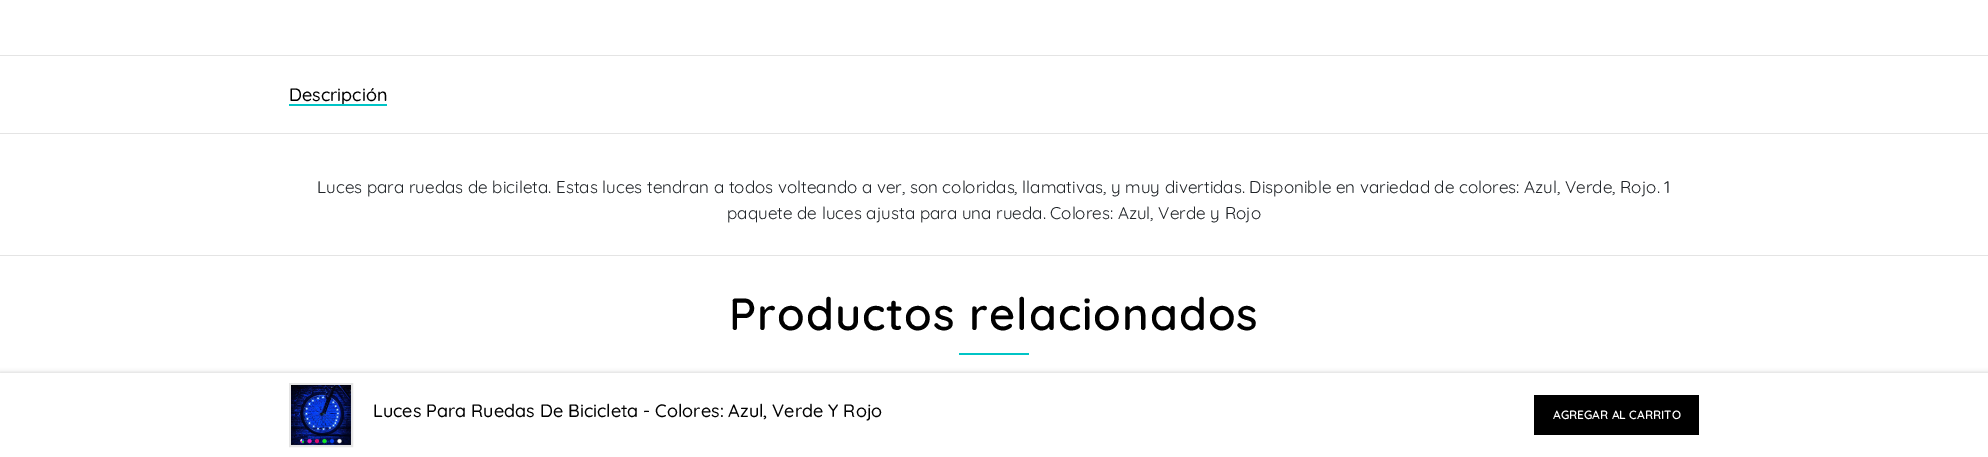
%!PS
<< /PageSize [1988 457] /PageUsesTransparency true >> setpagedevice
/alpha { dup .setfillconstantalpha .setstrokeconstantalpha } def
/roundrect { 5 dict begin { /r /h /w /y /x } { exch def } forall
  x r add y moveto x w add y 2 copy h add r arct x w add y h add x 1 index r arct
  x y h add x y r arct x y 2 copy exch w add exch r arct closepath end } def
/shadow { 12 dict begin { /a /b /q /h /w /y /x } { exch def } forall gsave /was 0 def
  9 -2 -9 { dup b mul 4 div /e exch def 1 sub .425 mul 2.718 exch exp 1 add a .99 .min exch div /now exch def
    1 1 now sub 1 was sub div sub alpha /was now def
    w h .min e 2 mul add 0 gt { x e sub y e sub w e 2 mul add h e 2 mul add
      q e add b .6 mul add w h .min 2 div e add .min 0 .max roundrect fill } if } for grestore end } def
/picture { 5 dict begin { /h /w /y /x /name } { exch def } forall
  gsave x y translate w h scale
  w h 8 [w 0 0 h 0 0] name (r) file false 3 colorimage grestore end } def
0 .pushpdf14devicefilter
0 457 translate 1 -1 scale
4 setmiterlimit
1 setgray
0 0 1988 457 rectfill
0.894 setgray
0 255 1988 1 rectfill
0 55 1988 1 rectfill
0 133 1988 1 rectfill
/Quicksand-Medium [18 0 0 -18 0 0] selectfont
0 setgray
289 101 moveto (Descripción) show
0 0.769 0.776 setrgbcolor
289 104 98 2 rectfill
/Quicksand-Regular [17 0 0 -17 0 0] selectfont
0.129 0.145 0.161 setrgbcolor
317 193 moveto (Luces para ruedas de bicileta. Estas luces tendran a todos volteando a ver, son coloridas, llamativas, y muy divertidas. Disponible en variedad de colores: Azul, Verde, Rojo. 1) show
727 219 moveto (paquete de luces ajusta para una rueda. Colores: Azul, Verde y Rojo) show
/Quicksand-SemiBold [45 0 0 -45 0 0] selectfont
0 setgray
729 330 moveto 1 0 (Productos relacionados) ashow
0 0.769 0.776 setrgbcolor
959 353 70 2 rectfill
0 setgray
0 373 1988 84 0 2.5 0.2 shadow
1 setgray
0 373 1988 84 rectfill
0.898 setgray
2 setlinewidth
290 384 62 62 rectstroke
(img1.rgb) 291 385 60 60 picture
/Quicksand-Medium [18 0 0 -18 0 0] selectfont
0 setgray
373 417 moveto (Luces Para Ruedas De Bicicleta - Colores: Azul, Verde Y Rojo) show
1534 395 165 40 rectfill
/Quicksand-SemiBold [12 0 0 -12 0 0] selectfont
1 setgray
1553 419 moveto (AGREGAR AL CARRITO) show
.poppdf14devicefilter showpage
